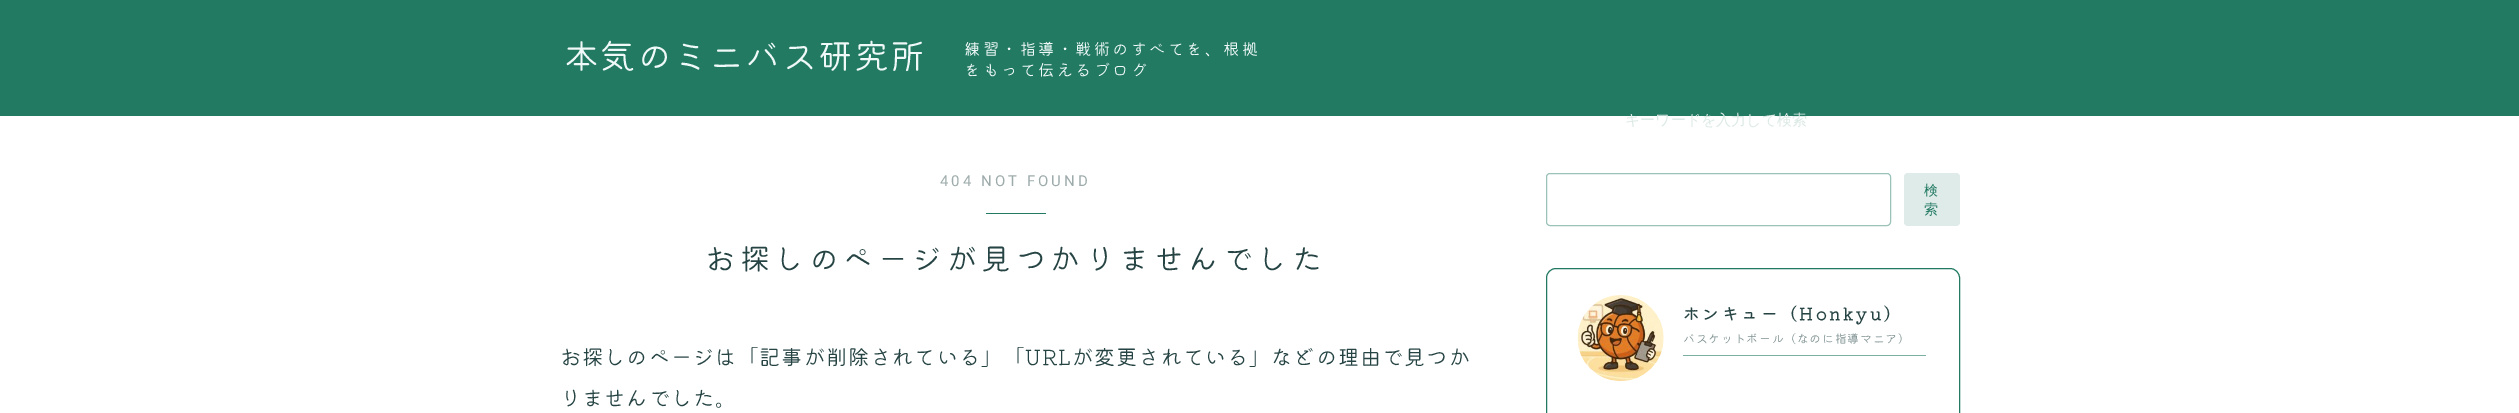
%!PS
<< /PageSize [2519 413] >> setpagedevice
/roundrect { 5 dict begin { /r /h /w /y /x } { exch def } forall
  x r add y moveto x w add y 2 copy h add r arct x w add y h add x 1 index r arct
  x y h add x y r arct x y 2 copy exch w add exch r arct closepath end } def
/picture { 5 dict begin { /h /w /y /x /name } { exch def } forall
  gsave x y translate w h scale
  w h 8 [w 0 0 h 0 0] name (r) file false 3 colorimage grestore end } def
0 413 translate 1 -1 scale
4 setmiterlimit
1 setgray
0 0 2519 413 rectfill
0.137 0.478 0.388 setrgbcolor
0 0 2519 116 rectfill
/KiwiMaru-Light [35 0 0 -35 0 0] selectfont
0.937 0.976 0.969 setrgbcolor
564 69 moveto 1.25 0 (本気のミニバス研究所) ashow
/KiwiMaru-Light [16.25 0 0 -16.25 0 0] selectfont
964 55 moveto 2.25 0 (練習・指導・戦術のすべてを、根拠) ashow
964 76 moveto 2.25 0 (をもって伝えるブログ) ashow
/WenQuanYiZenHei-Medium [15 0 0 -15 0 0] selectfont
0.863 0.918 0.902 setrgbcolor
1625 125 moveto (キーワードを入力して検索) show
/Roboto-Regular [15 0 0 -15 0 0] selectfont
0.62 0.671 0.671 setrgbcolor
940 186 moveto 3 0 (404 NOT FOUND) ashow
0.137 0.478 0.388 setrgbcolor
986 213 60 1 rectfill
/KiwiMaru-Light [30 0 0 -30 0 0] selectfont
0.153 0.267 0.267 setrgbcolor
705 270 moveto 4.5 0 (お探しのページが見つかりませんでした) ashow
/KiwiMaru-Light [21.25 0 0 -21.25 0 0] selectfont
560 365 moveto 0.9 0 (お探しのページは「記事が削除されている」「URLが変更されている」などの理由で見つか) ashow
560 406 moveto 0.9 0 (りませんでした。) ashow
0.612 0.765 0.725 setrgbcolor
1546.5 173.5 344 52 3.5 roundrect stroke
0.871 0.922 0.91 setrgbcolor
1904 173 56 53 4 roundrect fill
/WenQuanYiZenHei-Medium [14 0 0 -14 0 0] selectfont
0.137 0.478 0.388 setrgbcolor
1924 195 moveto 2 0 (検) ashow
1924 214 moveto 2 0 (索) ashow
1546.5 268.5 413 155 9.5 roundrect stroke
(img1.rgb) 1577 295 87 87 picture
/KiwiMaru-Medium [16.9 0 0 -16.9 0 0] selectfont
0.153 0.267 0.267 setrgbcolor
1683 320 moveto 2.5 0 (ホンキュー（Honkyu）) ashow
0.482 0.686 0.631 setrgbcolor
1683 355 243 1 rectfill
/KiwiMaru-Light [11.9 0 0 -11.9 0 0] selectfont
0.49 0.561 0.561 setrgbcolor
1683 343 moveto 0.75 0 (バスケットボール（なのに指導マニア）) ashow
showpage
